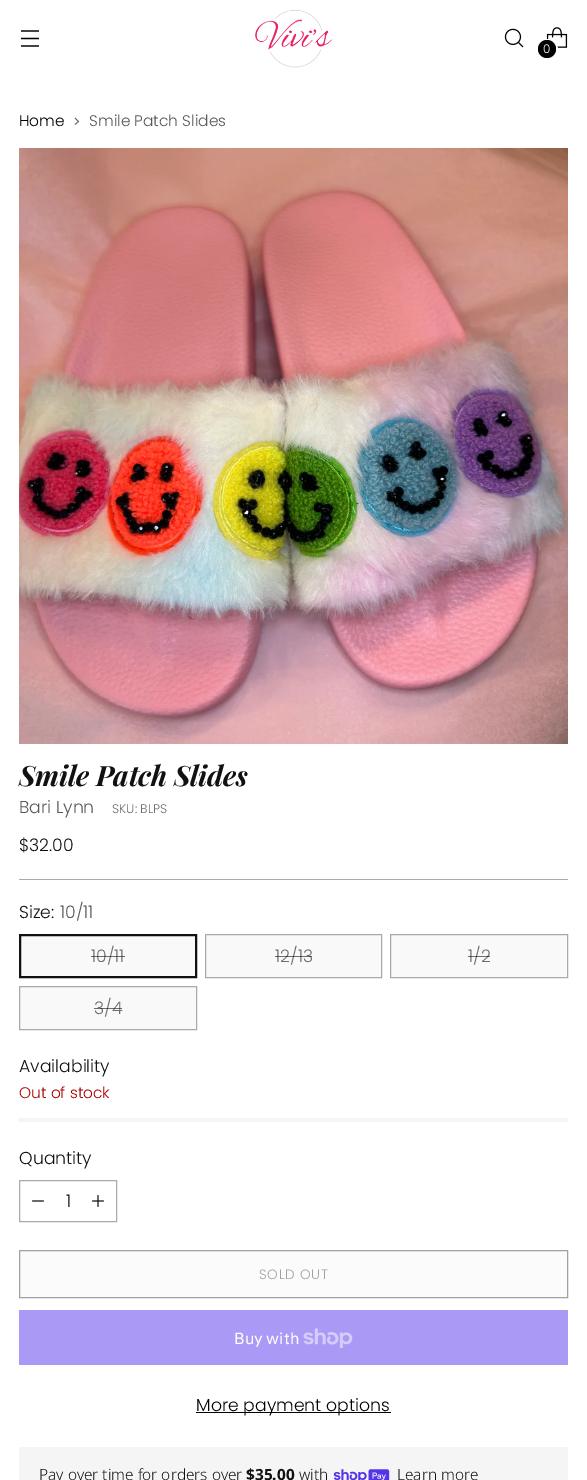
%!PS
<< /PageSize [587 1480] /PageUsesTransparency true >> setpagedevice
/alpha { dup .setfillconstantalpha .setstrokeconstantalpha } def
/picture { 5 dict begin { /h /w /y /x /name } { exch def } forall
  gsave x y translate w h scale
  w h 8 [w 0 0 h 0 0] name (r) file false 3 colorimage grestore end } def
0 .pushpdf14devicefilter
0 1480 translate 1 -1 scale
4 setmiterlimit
1 setgray
0 0 587 1480 rectfill
0 setgray
1.3 setlinewidth
newpath 21 38.5 moveto 39 38.5 lineto 21 31 moveto 39 31 lineto 21 46 moveto 39 46 lineto stroke
(img1.rgb) 255 9 77 59 picture
(img2.rgb) 504 28 20 20 picture
(img3.rgb) 546 27 22 21 picture
1 setgray
2 setlinewidth
newpath 547.5 49.5 9.5 0 360 arc closepath stroke
0 setgray
newpath 547 49 9 0 360 arc closepath fill
/Poppins-Light [12 0 0 -12 0 0] selectfont
1 setgray
543 53 moveto (0) show
/Poppins-Light [15.4 0 0 -15.4 0 0] selectfont
0 setgray
19 126 moveto (Home) show
0.439 setgray
0.9 setlinewidth
newpath 75 124.5 moveto 78.5 121.5 lineto 75 118 lineto stroke
0.345 setgray
89 126 moveto (Smile Patch Slides) show
(img4.rgb) 19 148 549 596 picture
0.667 setgray
19 879 549 1 rectfill
/PlayfairDisplay-BoldItalic [28 0 0 -28 0 0] selectfont
0.067 setgray
19 786 moveto -0.25 0 (Smile Patch Slides) ashow
/Poppins-Light [17.25 0 0 -17.25 0 0] selectfont
0.345 setgray
19 813 moveto (Bari Lynn) show
/Poppins-Light [12.5 0 0 -12.5 0 0] selectfont
0.431 setgray
112 813 moveto (SKU: BLPS) show
/Poppins-Light [17.25 0 0 -17.25 0 0] selectfont
0.067 setgray
19 851 moveto ($32.00) show
19 918 moveto (Size:) show
0.345 setgray
60 918 moveto (10/11) show
0.976 setgray
newpath 20.5 935.5 moveto 195.5 935.5 lineto 195.5 976.5 lineto 20.5 976.5 lineto closepath gsave fill grestore
0.067 setgray
1 setlinewidth
stroke
19.5 934.5 177 43 rectstroke
0.431 setgray
91 962 moveto (10/11) show
0.6 alpha
0.067 setgray
91 956 34 1 rectfill
1 alpha
0.976 setgray
newpath 205.5 934.5 moveto 381.5 934.5 lineto 381.5 977.5 lineto 205.5 977.5 lineto closepath gsave fill grestore
0.667 setgray
stroke
0.431 setgray
275 962 moveto (12/13) show
0.6 alpha
0.067 setgray
275 956 37 1 rectfill
1 alpha
0.976 setgray
newpath 390.5 934.5 moveto 567.5 934.5 lineto 567.5 977.5 lineto 390.5 977.5 lineto closepath gsave fill grestore
0.667 setgray
stroke
0.431 setgray
468 962 moveto (1/2) show
0.6 alpha
0.067 setgray
468 956 22 1 rectfill
1 alpha
0.976 setgray
newpath 19.5 986.5 moveto 196.5 986.5 lineto 196.5 1029.5 lineto 19.5 1029.5 lineto closepath gsave fill grestore
0.667 setgray
stroke
0.431 setgray
94 1014 moveto (3/4) show
0.6 alpha
0.067 setgray
94 1008 28 1 rectfill
1 alpha
19 1072 moveto (Availability) show
/Poppins-Light [15.4 0 0 -15.4 0 0] selectfont
0.655 0.004 0 setrgbcolor
19 1098 moveto (Out of stock) show
0.961 setgray
19 1118 549 4 rectfill
/Poppins-Light [17.25 0 0 -17.25 0 0] selectfont
0.067 setgray
19 1164 moveto (Quantity) show
0.667 setgray
19.5 1180.5 97 41 rectstroke
(img5.rgb) 32 1200 12 2 picture
0.067 setgray
66 1207 moveto (1) show
(img6.rgb) 92 1195 12 12 picture
0.984 setgray
newpath 19.5 1250.5 moveto 567.5 1250.5 lineto 567.5 1297.5 lineto 19.5 1297.5 lineto closepath gsave fill grestore
0.627 setgray
stroke
/Poppins-Light [13.5 0 0 -13.5 0 0] selectfont
259 1279 moveto 0.75 0 (SOLD OUT) ashow
0.667 0.6 0.961 setrgbcolor
19 1310 549 55 rectfill
/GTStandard-Regular [16 0 0 -16 0 0] selectfont
1 setgray
234 1344 moveto (Buy with) show
(img7.rgb) 303 1328 50 20 picture
0 setgray
196 1412 195 1 rectfill
/Poppins-Light [17.25 0 0 -17.25 0 0] selectfont
196 1411 moveto (More payment options) show
0.961 setgray
19 1447 549 33 rectfill
/NotoSans-Light [15.4 0 0 -15.4 0 0] selectfont
0.067 setgray
39 1480 moveto (Pay over time for orders over) show
/NotoSans-Bold [15.4 0 0 -15.4 0 0] selectfont
246 1480 moveto ($35.00) show
/NotoSans-Light [15.4 0 0 -15.4 0 0] selectfont
299 1480 moveto (with) show
(img8.rgb) 333 1469 57 11 picture
397 1480 moveto (Learn more) show
.poppdf14devicefilter showpage
